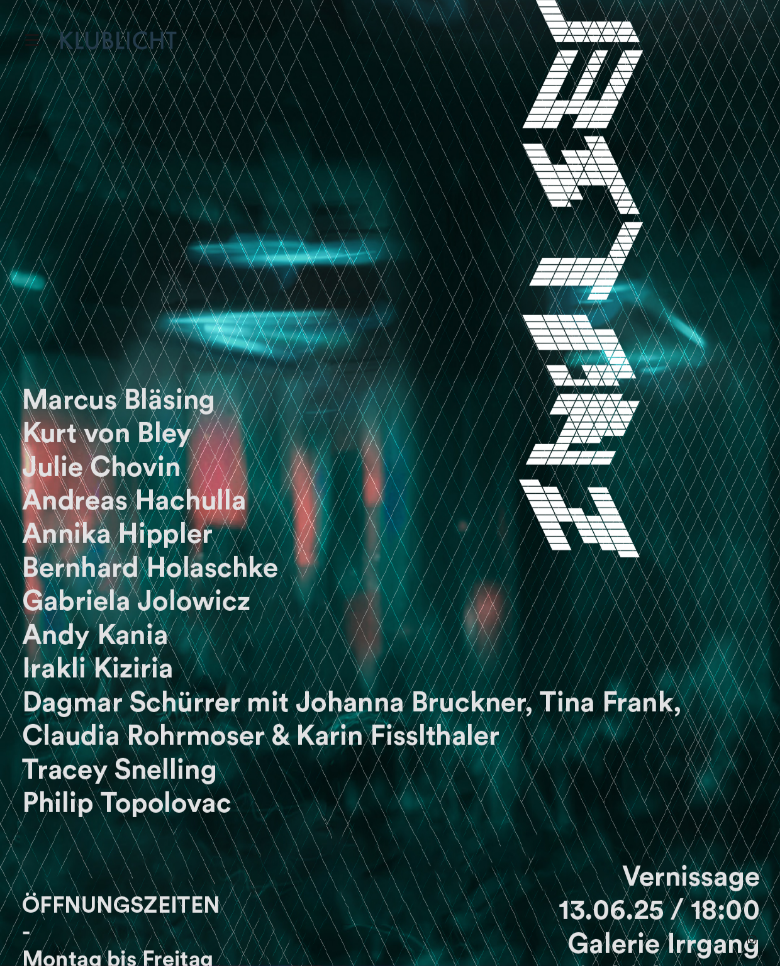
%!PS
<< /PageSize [780 966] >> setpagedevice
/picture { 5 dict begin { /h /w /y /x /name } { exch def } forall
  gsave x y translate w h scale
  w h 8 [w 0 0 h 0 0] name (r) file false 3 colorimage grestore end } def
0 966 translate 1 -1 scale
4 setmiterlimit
1 setgray
0 0 780 966 rectfill
(img2.rgb) 0 965 780 1 picture
(img3.rgb) 0 965 780 1 picture
(img1.rgb) 0 0 780 966 picture
(img4.rgb) 25 34 14 12 picture
(img5.rgb) 60 31 117 19 picture
(img6.rgb) 747 935 10 10 picture
showpage
